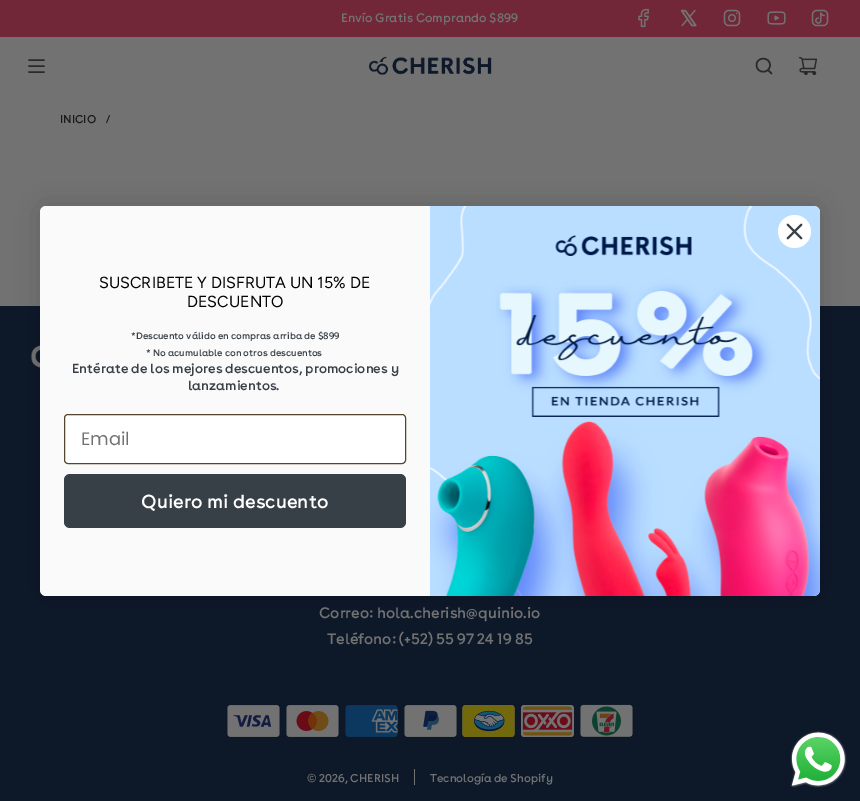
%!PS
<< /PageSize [860 801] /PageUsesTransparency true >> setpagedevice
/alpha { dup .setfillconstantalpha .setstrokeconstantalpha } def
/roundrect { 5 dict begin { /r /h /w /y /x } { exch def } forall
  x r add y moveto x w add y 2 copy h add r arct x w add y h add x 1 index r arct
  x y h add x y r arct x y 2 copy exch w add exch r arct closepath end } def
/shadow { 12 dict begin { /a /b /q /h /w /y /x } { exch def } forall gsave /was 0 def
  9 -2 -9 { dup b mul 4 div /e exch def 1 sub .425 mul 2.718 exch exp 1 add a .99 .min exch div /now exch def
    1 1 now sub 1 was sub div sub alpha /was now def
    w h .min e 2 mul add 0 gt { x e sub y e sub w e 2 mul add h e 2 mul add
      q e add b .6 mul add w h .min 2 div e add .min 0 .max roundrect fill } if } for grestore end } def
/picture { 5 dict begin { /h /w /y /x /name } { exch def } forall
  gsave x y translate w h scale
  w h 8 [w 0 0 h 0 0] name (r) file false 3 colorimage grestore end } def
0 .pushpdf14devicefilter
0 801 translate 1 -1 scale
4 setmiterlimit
0.447 setgray
0 0 860 801 rectfill
0.447 0.153 0.22 setrgbcolor
0 0 860 37 rectfill
/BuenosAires-Regular [13 0 0 -13 0 0] selectfont
0.447 setgray
341 22 moveto (Envío Gratis Comprando $899) show
(img1.rgb) 638 8 11 20 picture
(img2.rgb) 680 9 17 18 picture
(img3.rgb) 723 9 18 18 picture
(img4.rgb) 767 11 19 14 picture
(img5.rgb) 811 9 18 18 picture
0.161 setgray
1.5 setlinewidth
1 setlinecap
1 setlinejoin
newpath 29 60 moveto 44 60 lineto 29 66 moveto 44 66 lineto 29 72 moveto 44 72 lineto stroke
(img6.rgb) 368 56 124 19 picture
newpath 768 70 moveto 771.5 73.5 lineto 756.5 65 moveto 756.5 74 770 74 770 65 curveto 770 56.5 756.5 56.5 756.5 65 curveto closepath stroke
(img7.rgb) 798 56 20 20 picture
/BuenosAires-Regular [12 0 0 -12 0 0] selectfont
0.102 setgray
60 123 moveto (INICIO) show
106 123 moveto (/) show
0.051 0.094 0.161 setrgbcolor
0 306 860 495 rectfill
(img9.rgb) 30 345 10 23 picture
0 setgray
40 206 780 390 6 15 0.15 shadow
0.98 setgray
40 206 780 390 6 roundrect fill
(img8.rgb) 430 206 390 390 picture
1 setgray
newpath 794.5 231.5 16.5 0 360 arc closepath fill
0.216 0.247 0.278 setrgbcolor
1.8 setlinewidth
newpath 787.5 224.5 moveto 801.5 238.5 lineto 787.5 238.5 moveto 801.5 224.5 lineto closepath stroke
/Figtree-Regular [16 0 0 -16 0 0] selectfont
0 setgray
99 288 moveto (SUSCRIBETE Y DISFRUTA UN 15% DE) show
187 307 moveto (DESCUENTO) show
/BuenosAires-Regular [10 0 0 -10 0 0] selectfont
0.216 0.247 0.278 setrgbcolor
131 339 moveto (*Descuento válido en compras arriba de $899) show
146 356 moveto (* No acumulable con otros descuentos) show
/BuenosAires-Regular [14 0 0 -14 0 0] selectfont
72 373 moveto (Entérate de los mejores descuentos, promociones y) show
188 390 moveto (lanzamientos.) show
1 setgray
64.5 414.5 341 49 3.5 roundrect gsave fill grestore
0.329 0.275 0.184 setrgbcolor
1 setlinewidth
0 setlinecap
0 setlinejoin
stroke
/Poppins-Regular [18 0 0 -18 0 0] selectfont
0.447 setgray
81 445 moveto (Email) show
0.216 0.247 0.278 setrgbcolor
64 474 342 54 6 roundrect fill
/BuenosAires-Regular [20 0 0 -20 0 0] selectfont
1 setgray
141 508 moveto (Quiero mi descuento) show
/BuenosAires-Regular [16 0 0 -16 0 0] selectfont
0.447 setgray
319 618 moveto (Correo: hola.cherish@quinio.io) show
327 644 moveto (Teléfono: \(+52\) 55 97 24 19 85) show
(img10.rgb) 226 704 55 34 picture
(img11.rgb) 285 704 55 34 picture
(img12.rgb) 344 704 55 34 picture
(img13.rgb) 403 704 55 34 picture
(img14.rgb) 461 704 55 34 picture
(img15.rgb) 520 704 55 34 picture
(img16.rgb) 579 704 55 34 picture
/BuenosAires-Regular [12 0 0 -12 0 0] selectfont
307 782 moveto (© 2026, CHERISH) show
414 769 1 16 rectfill
430 782 moveto (Tecnología de Shopify) show
(img17.rgb) 790 731 57 57 picture
.poppdf14devicefilter showpage
